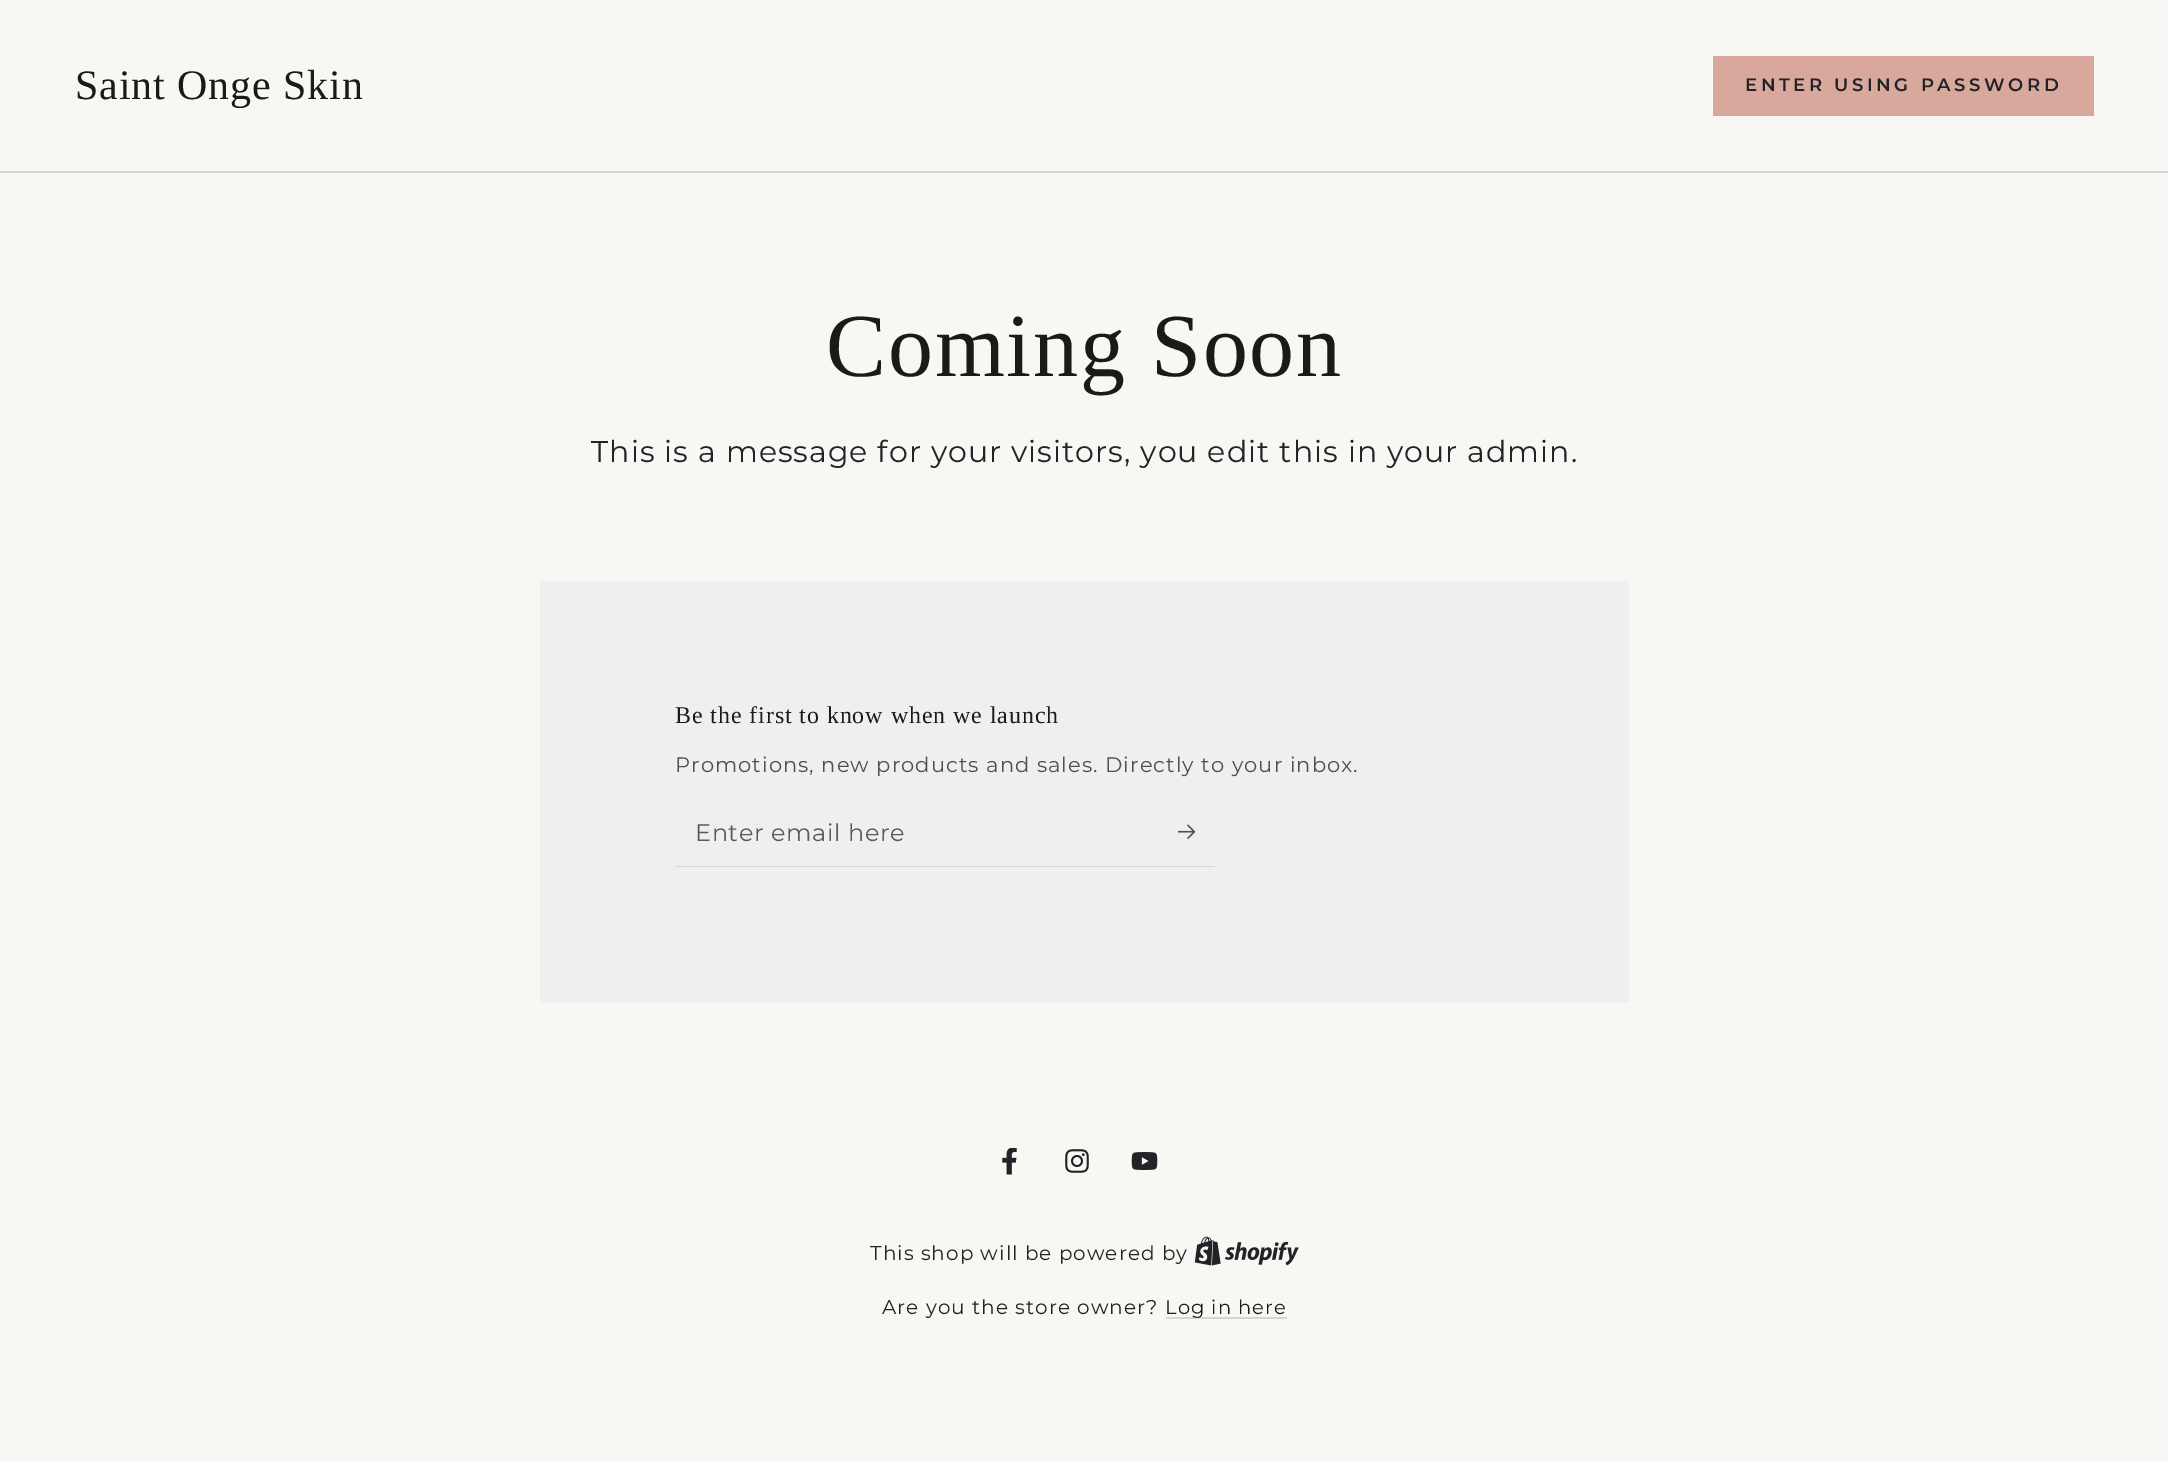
%!PS
<< /PageSize [2168 1461] >> setpagedevice
/picture { 5 dict begin { /h /w /y /x /name } { exch def } forall
  gsave x y translate w h scale
  w h 8 [w 0 0 h 0 0] name (r) file false 3 colorimage grestore end } def
0 1461 translate 1 -1 scale
4 setmiterlimit
0.976 0.969 0.953 setrgbcolor
0 0 2168 1461 rectfill
/LiberationSerif-Regular [42 0 0 -42 0 0] selectfont
0.102 0.106 0.094 setrgbcolor
75 99 moveto 0.9 0 (Saint Onge Skin) ashow
0.851 0.659 0.612 setrgbcolor
1713 56 381 60 rectfill
/Montserrat-SemiBold [18 0 0 -18 0 0] selectfont
0.129 0.137 0.149 setrgbcolor
1745 91 moveto 3.6 0 (ENTER USING PASSWORD) ashow
0.824 0.835 0.851 setrgbcolor
0 171 2168 2 rectfill
/LiberationSerif-Regular [90 0 0 -90 0 0] selectfont
0.102 0.106 0.094 setrgbcolor
826 376 moveto 1.75 0 (Coming Soon) ashow
/Montserrat-Regular [30 0 0 -30 0 0] selectfont
0.129 0.137 0.149 setrgbcolor
591 462 moveto 1.05 0 (This is a message for your visitors, you edit this in your admin.) ashow
0.937 setgray
540 581 1089 421 rectfill
/LiberationSerif-Regular [24 0 0 -24 0 0] selectfont
0.102 0.106 0.094 setrgbcolor
675 723 moveto 0.9 0 (Be the first to know when we launch) ashow
/Montserrat-Regular [21 0 0 -21 0 0] selectfont
0.31 0.314 0.306 setrgbcolor
675 772 moveto 1.05 0 (Promotions, new products and sales. Directly to your inbox.) ashow
0.824 0.835 0.851 setrgbcolor
newpath 1215 867 moveto 675 867 lineto 676 866 lineto 1214 866 lineto closepath fill
/Montserrat-Regular [24 0 0 -24 0 0] selectfont
0.353 0.357 0.349 setrgbcolor
695 841 moveto 0.6 0 (Enter email here) ashow
(img1.rgb) 1178 824 18 15 picture
(img2.rgb) 1002 1148 15 27 picture
(img3.rgb) 1065 1149 24 24 picture
(img4.rgb) 1131 1152 27 18 picture
/Montserrat-Regular [20 0 0 -20 0 0] selectfont
0.129 0.137 0.149 setrgbcolor
870 1260 moveto 1.05 0 (This shop will be powered by) ashow
(img5.rgb) 1194 1236 105 30 picture
882 1314 moveto 1.05 0 (Are you the store owner?) ashow
0.824 0.835 0.851 setrgbcolor
1166 1317 121 2 rectfill
/Montserrat-Regular [19.5 0 0 -19.5 0 0] selectfont
0.102 0.106 0.094 setrgbcolor
1165 1314 moveto 1.05 0 (Log in here) ashow
showpage
